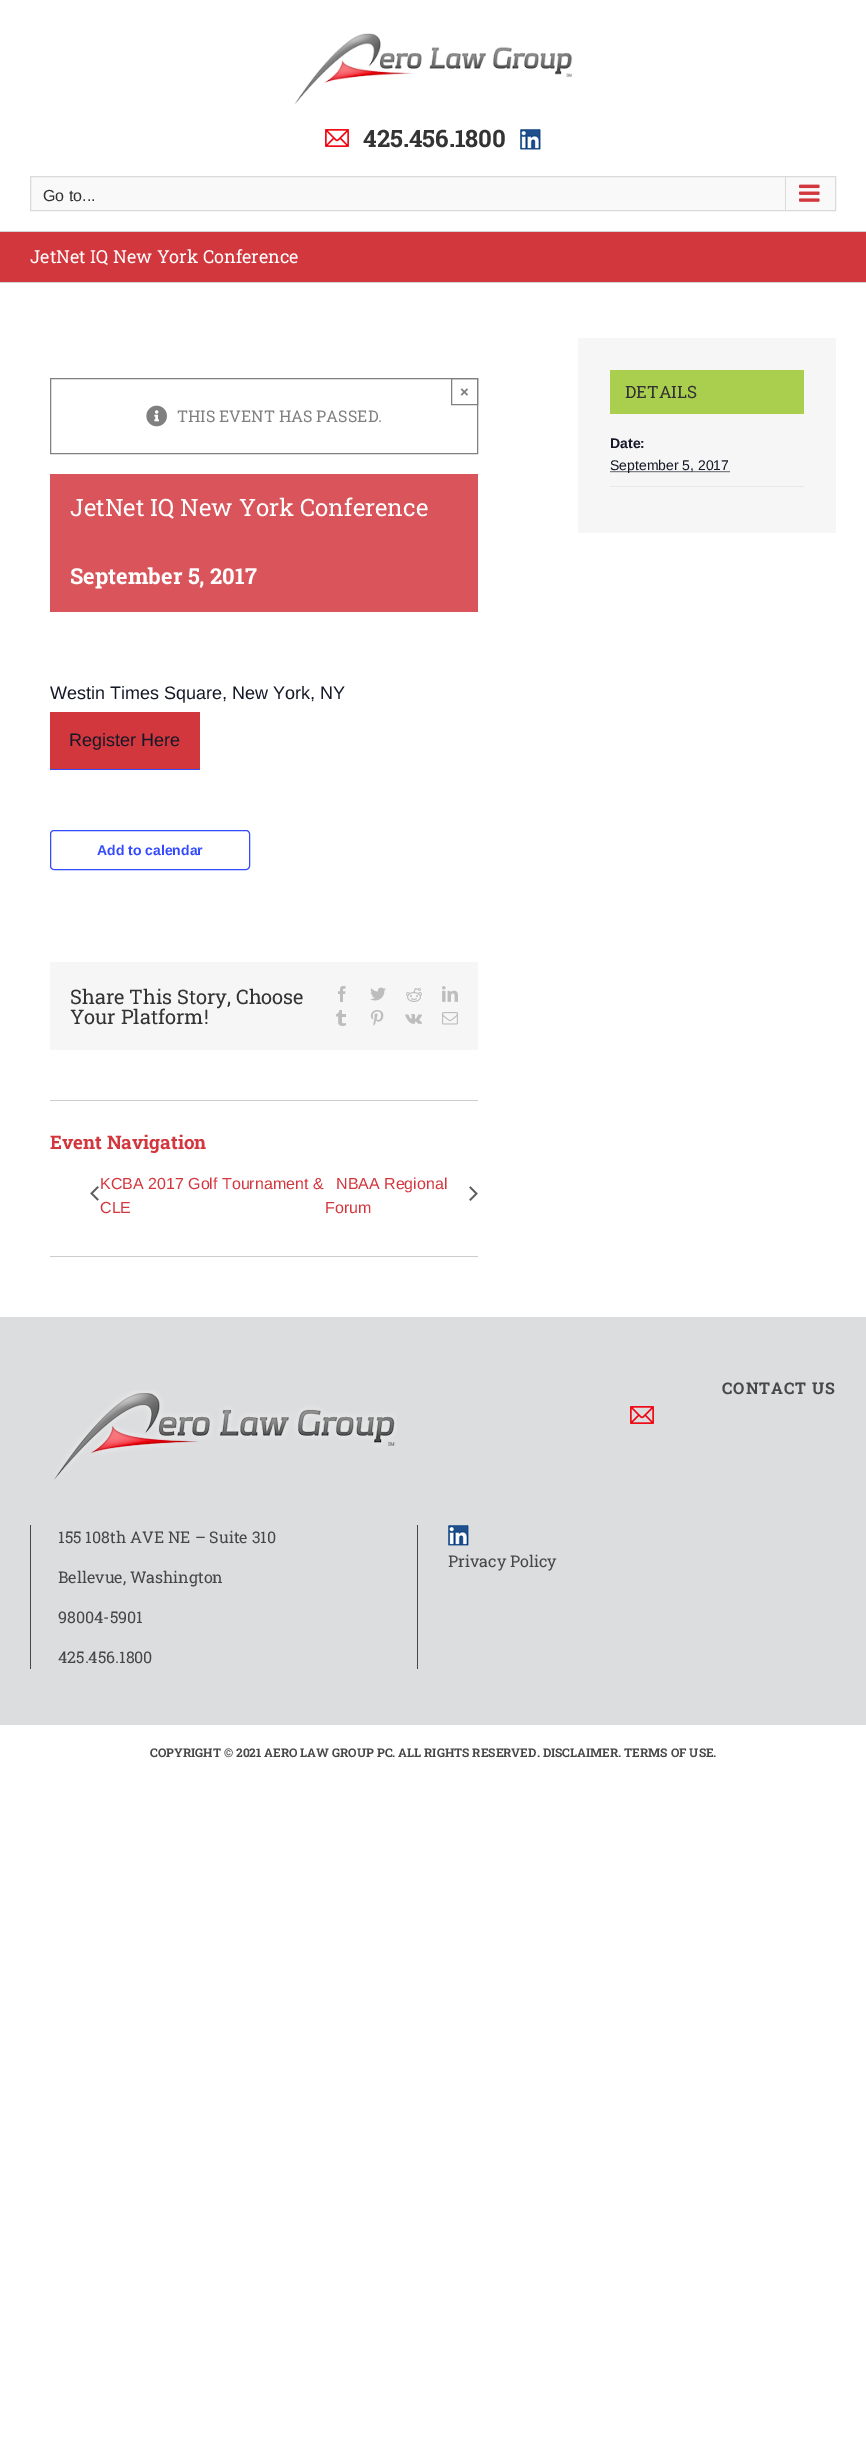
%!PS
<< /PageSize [866 2455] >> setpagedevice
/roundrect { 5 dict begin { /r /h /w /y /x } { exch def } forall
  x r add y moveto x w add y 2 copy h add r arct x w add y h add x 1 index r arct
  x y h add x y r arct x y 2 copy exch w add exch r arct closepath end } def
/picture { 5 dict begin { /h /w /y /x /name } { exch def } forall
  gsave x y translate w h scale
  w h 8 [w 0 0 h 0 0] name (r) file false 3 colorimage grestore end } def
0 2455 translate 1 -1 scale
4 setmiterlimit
1 setgray
0 0 866 2455 rectfill
(img1.rgb) 294 33 279 71 picture
(img2.rgb) 325 129 24 18 picture
/RobotoSlab-Bold [24 0 0 -24 0 0] selectfont
0.2 setgray
363 147 moveto (425.456.1800) show
(img3.rgb) 520 129 21 21 picture
0.976 setgray
newpath 30.5 176.5 moveto 835.5 176.5 lineto 835.5 210.5 lineto 30.5 210.5 lineto closepath gsave fill grestore
0.855 setgray
stroke
/LiberationSans-Regular [16 0 0 -16 0 0] selectfont
0.2 setgray
43 201 moveto (Go to...) show
0.855 setgray
785 177 1 33 rectfill
(img4.rgb) 799 184 21 18 picture
0.827 0.216 0.243 setrgbcolor
0 232 866 50 rectfill
0.824 0.827 0.831 setrgbcolor
0 231 866 1 rectfill
0 282 866 1 rectfill
/RobotoSlab-Regular [18 0 0 -18 0 0] selectfont
1 setgray
30 263 moveto (JetNet IQ New York Conference) show
0.502 setgray
50.5 378.5 427 75 rectstroke
451.5 378.5 26 26 rectstroke
/LiberationSans-Bold [15 0 0 -15 0 0] selectfont
460 397 moveto (×) show
(img5.rgb) 146 405 21 22 picture
/RobotoSlab-Regular [16 0 0 -16 0 0] selectfont
177 422 moveto (THIS EVENT HAS PASSED.) show
0.855 0.333 0.357 setrgbcolor
50 474 428 138 rectfill
/RobotoSlab-Regular [24 0 0 -24 0 0] selectfont
1 setgray
70 516 moveto (JetNet IQ New York Conference) show
/RobotoSlab-Bold [22 0 0 -22 0 0] selectfont
70 584 moveto (September 5, 2017) show
/LiberationSans-Regular [18 0 0 -18 0 0] selectfont
0.078 0.094 0.153 setrgbcolor
50 699 moveto (Westin Times Square, New York, NY) show
0.827 0.216 0.243 setrgbcolor
50 712 150 57 rectfill
0.2 0.29 1 setrgbcolor
50 769 150 1 rectfill
0.078 0.094 0.153 setrgbcolor
69 746 moveto (Register Here) show
0.2 0.29 1 setrgbcolor
50.5 830.5 199 39 3.5 roundrect stroke
/LiberationSans-Bold [14 0 0 -14 0 0] selectfont
97 855 moveto (Add to calendar) show
0.965 setgray
50 962 428 88 rectfill
/RobotoSlab-Regular [20 0 0 -20 0 0] selectfont
0.2 setgray
70 1004 moveto (Share This Story, Choose) show
70 1024 moveto (Your Platform!) show
(img6.rgb) 338 986 8 16 picture
(img7.rgb) 370 987 16 14 picture
(img8.rgb) 406 988 16 14 picture
(img9.rgb) 442 986 16 16 picture
(img10.rgb) 336 1010 10 16 picture
(img11.rgb) 370 1010 14 16 picture
(img12.rgb) 405 1014 17 10 picture
(img13.rgb) 442 1012 16 13 picture
0.8 setgray
50 1100 428 1 rectfill
50 1256 428 1 rectfill
/RobotoSlab-Bold [18.75 0 0 -18.75 0 0] selectfont
0.827 0.216 0.243 setrgbcolor
50 1149 moveto (Event Navigation) show
/LiberationSans-Regular [16 0 0 -16 0 0] selectfont
100 1189 moveto (KCBA 2017 Golf Tournament &) show
(img14.rgb) 90 1186 9 15 picture
100 1213 moveto (CLE) show
336 1189 moveto (NBAA Regional) show
(img15.rgb) 469 1186 9 15 picture
325 1213 moveto (Forum) show
0.965 setgray
578 338 258 195 rectfill
0.667 0.808 0.306 setrgbcolor
610 370 194 44 rectfill
/RobotoSlab-Regular [17 0 0 -17 0 0] selectfont
0.2 setgray
625 398 moveto (DETAILS) show
/LiberationSans-Bold [14 0 0 -14 0 0] selectfont
0.078 0.094 0.153 setrgbcolor
610 448 moveto (Date:) show
0.91 setgray
610 486 194 1 rectfill
0.078 0.094 0.153 setrgbcolor
[1 1] 0 setdash
newpath 610.5 471.5 moveto 729.5 471.5 lineto stroke
/LiberationSans-Regular [14 0 0 -14 0 0] selectfont
610 470 moveto (September 5, 2017) show
0.863 0.867 0.871 setrgbcolor
0 1317 866 408 rectfill
/RobotoSlab-Bold [16 0 0 -16 0 0] selectfont
0.278 setgray
722 1394 moveto 1 0 (CONTACT US) ashow
(img16.rgb) 630 1406 24 18 picture
(img17.rgb) 54 1390 343 90 picture
417 1525 1 144 rectfill
30 1525 1 144 rectfill
/RobotoSlab-Regular [16 0 0 -16 0 0] selectfont
58 1543 moveto (155 108th AVE NE – Suite 310) show
58 1583 moveto (Bellevue, Washington) show
58 1623 moveto (98004-5901) show
58 1663 moveto (425.456.1800) show
(img18.rgb) 448 1525 21 21 picture
448 1567 moveto (Privacy Policy) show
/RobotoSlab-Bold [12 0 0 -12 0 0] selectfont
150 1757 moveto (COPYRIGHT © 2021 AERO LAW GROUP PC. ALL RIGHTS RESERVED. DISCLAIMER. TERMS OF USE.) show
showpage
